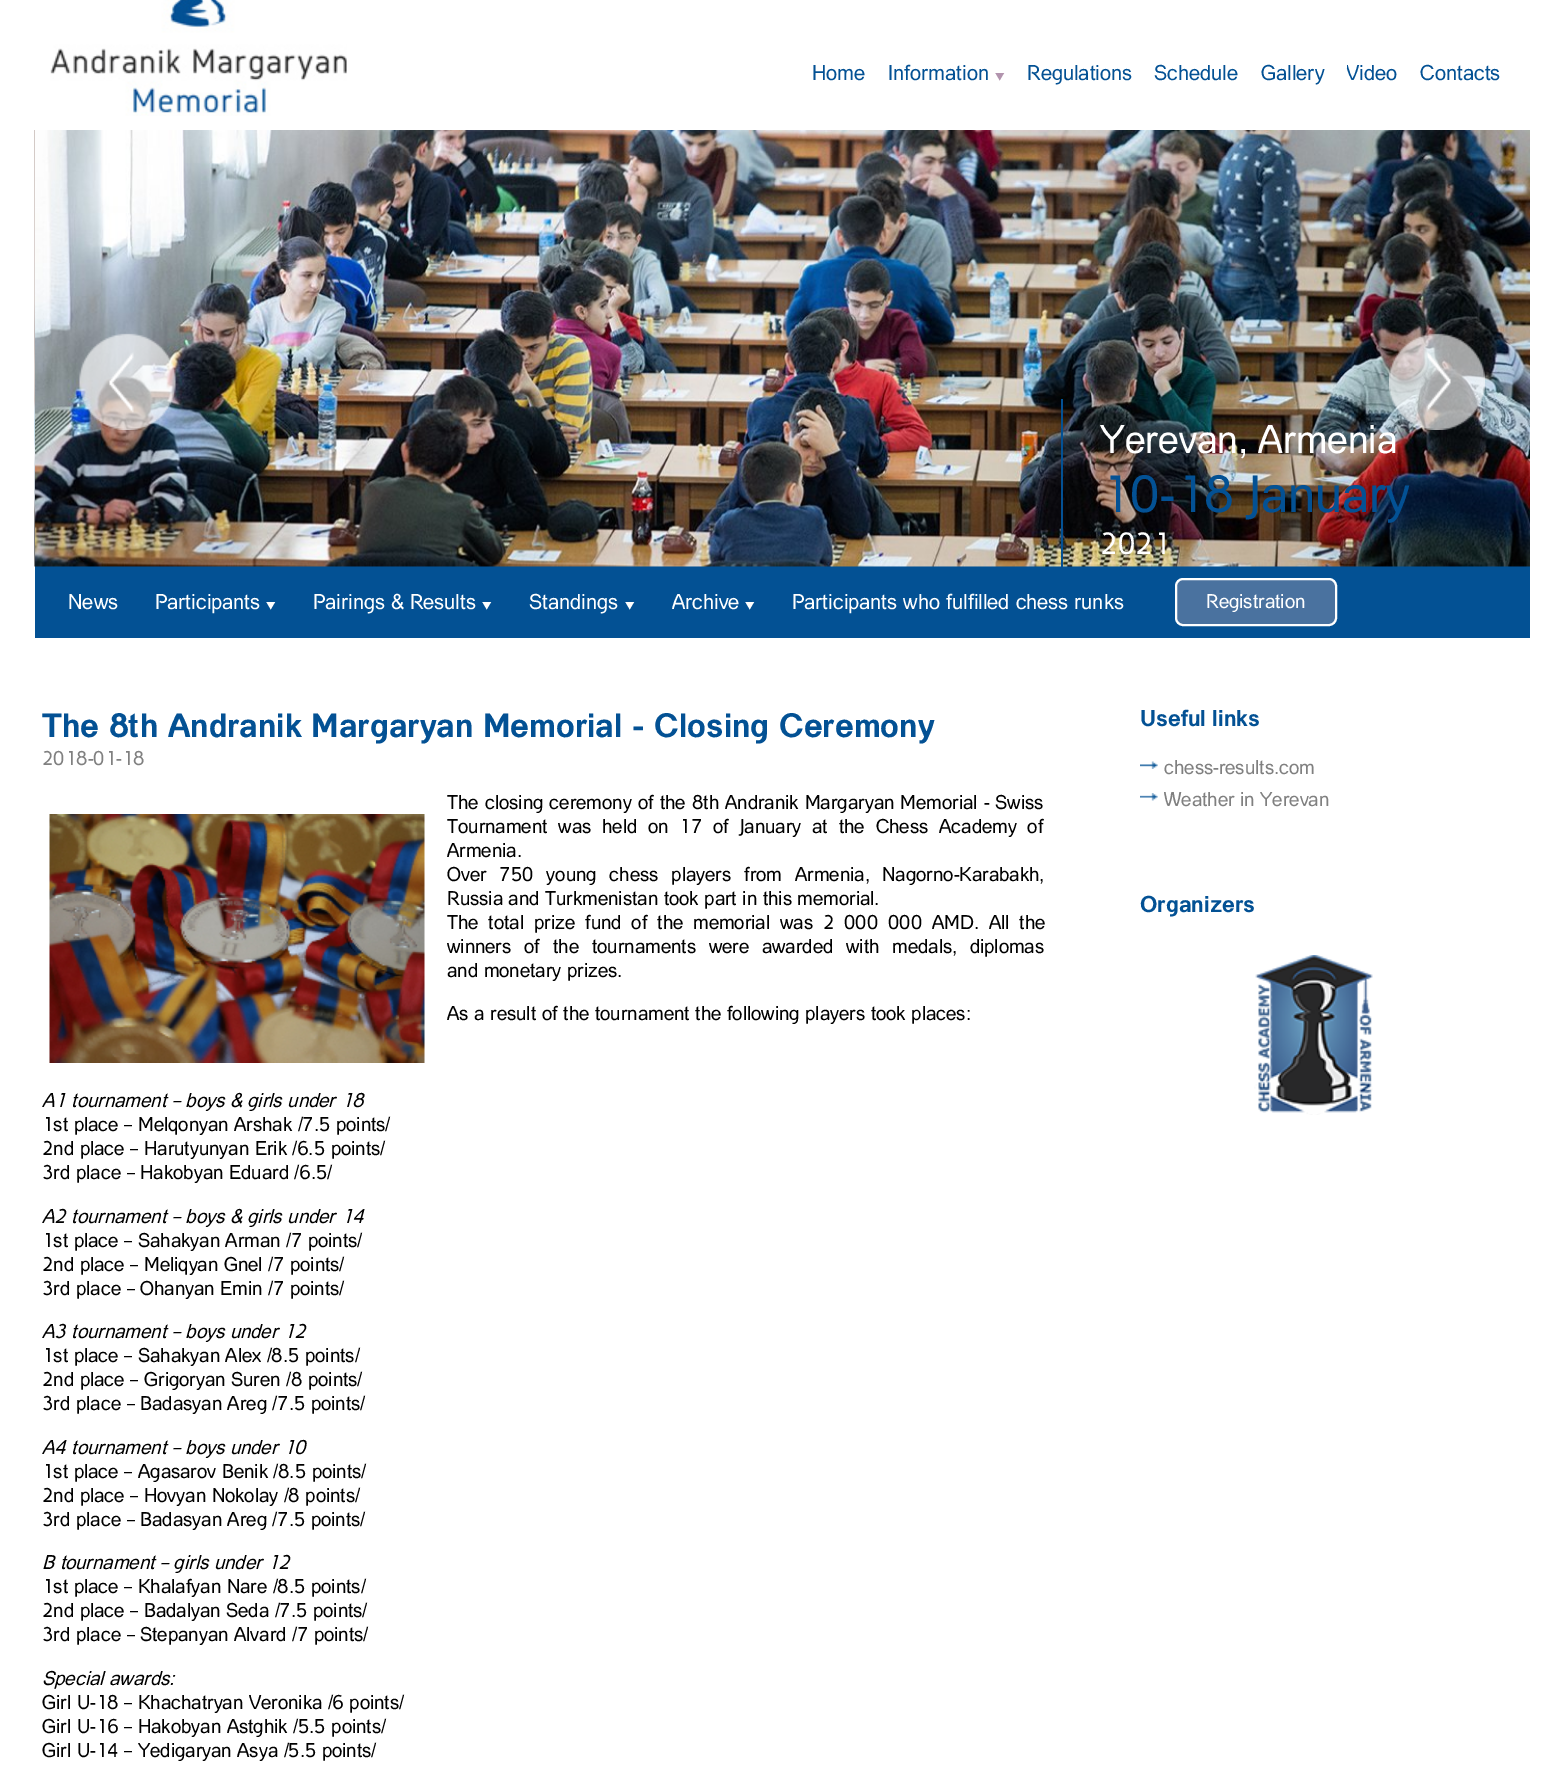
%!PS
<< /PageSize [1564 1768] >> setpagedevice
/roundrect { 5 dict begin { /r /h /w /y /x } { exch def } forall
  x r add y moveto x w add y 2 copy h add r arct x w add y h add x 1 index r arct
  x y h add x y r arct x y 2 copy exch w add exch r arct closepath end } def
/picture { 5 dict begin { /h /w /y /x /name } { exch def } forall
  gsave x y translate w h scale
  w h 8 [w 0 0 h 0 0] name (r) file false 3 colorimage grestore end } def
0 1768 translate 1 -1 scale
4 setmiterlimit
1 setgray
0 0 1564 1768 rectfill
(img1.rgb) 50 0 297 116 picture
/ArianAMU-Regular [21 0 0 -21 0 0] selectfont
0.012 0.318 0.58 setrgbcolor
812 80 moveto (Home) show
888 80 moveto (Information) show
/FreeSerif-Regular [22.5 0 0 -22.5 0 0] selectfont
0.698 0.58 0.682 setrgbcolor
995 83 moveto (▾) show
/ArianAMU-Regular [21 0 0 -21 0 0] selectfont
0.012 0.318 0.58 setrgbcolor
1027 80 moveto (Regulations) show
1154 80 moveto (Schedule) show
1346 80 moveto (Video) show
1 setgray
1346 65 1 3 rectfill
0.012 0.318 0.58 setrgbcolor
1261 80 moveto (Gallery) show
1420 80 moveto (Contacts) show
35 566 1495 72 rectfill
(img2.rgb) 34 130 1 437 picture
(img3.rgb) 35 130 1495 437 picture
(img4.rgb) 79 333 97 97 picture
/ArianAMU-Regular [39 0 0 -39 0 0] selectfont
1 setgray
1100 453 moveto (Yerevan, Armenia) show
(img5.rgb) 1389 333 96 97 picture
0.012 0.318 0.58 setrgbcolor
1061 399 2 168 rectfill
/ArianAMU-Regular [51 0 0 -51 0 0] selectfont
1100 512 moveto (10-18 January) show
/ArianAMU-Regular [30 0 0 -30 0 0] selectfont
1 setgray
1100 554 moveto (2021) show
/ArianAMU-Regular [21 0 0 -21 0 0] selectfont
68 609 moveto (News) show
155 609 moveto (Participants) show
/FreeSerif-Regular [22.5 0 0 -22.5 0 0] selectfont
266 612 moveto (▾) show
/ArianAMU-Regular [21 0 0 -21 0 0] selectfont
313 609 moveto (Pairings & Results) show
/FreeSerif-Regular [22.5 0 0 -22.5 0 0] selectfont
482 612 moveto (▾) show
/ArianAMU-Regular [21 0 0 -21 0 0] selectfont
529 609 moveto (Standings) show
/FreeSerif-Regular [22.5 0 0 -22.5 0 0] selectfont
625 612 moveto (▾) show
/ArianAMU-Regular [21 0 0 -21 0 0] selectfont
672 609 moveto (Archive) show
/FreeSerif-Regular [22.5 0 0 -22.5 0 0] selectfont
745 612 moveto (▾) show
/ArianAMU-Regular [21 0 0 -21 0 0] selectfont
792 609 moveto (Participants who fulfilled chess runks) show
0.29 0.447 0.624 setrgbcolor
1176 579 160 46 7 roundrect gsave fill grestore
1 setgray
2 setlinewidth
stroke
/ArianAMU-Regular [19.5 0 0 -19.5 0 0] selectfont
1206 608 moveto (Registration) show
/ArianAMU-Bold [33 0 0 -33 0 0] selectfont
0.012 0.318 0.58 setrgbcolor
42 737 moveto (The 8th Andranik Margaryan Memorial - Closing Ceremony) show
/ArianAMU-Regular [19.5 0 0 -19.5 0 0] selectfont
0.502 setgray
42 765 moveto (2018-01-18) show
(img6.rgb) 49 814 376 249 picture
0 setgray
447 809 moveto 0.5 0 32 (The closing ceremony of the 8th Andranik Margaryan Memorial - Swiss) widthshow
447 833 moveto 5.25 0 32 (Tournament was held on 17 of January at the Chess Academy of) widthshow
447 857 moveto (Armenia.) show
447 881 moveto 7.25 0 32 (Over 750 young chess players from Armenia, Nagorno-Karabakh,) widthshow
447 905 moveto (Russia and Turkmenistan took part in this memorial.) show
447 929 moveto 4.25 0 32 (The total prize fund of the memorial was 2 000 000 AMD. All the) widthshow
447 953 moveto 7.25 0 32 (winners of the tournaments were awarded with medals, diplomas) widthshow
447 977 moveto (and monetary prizes.) show
447 1020 moveto (As a result of the tournament the following players took places:) show
/ArianAMU-Italic [19.5 0 0 -19.5 0 0] selectfont
42 1107 moveto (A1 tournament – boys & girls under 18) show
/ArianAMU-Regular [19.5 0 0 -19.5 0 0] selectfont
42 1131 moveto (1st place – Melqonyan Arshak /7.5 points/) show
42 1155 moveto (2nd place – Harutyunyan Erik /6.5 points/) show
42 1179 moveto (3rd place – Hakobyan Eduard /6.5/) show
/ArianAMU-Italic [19.5 0 0 -19.5 0 0] selectfont
42 1223 moveto (A2 tournament – boys & girls under 14) show
/ArianAMU-Regular [19.5 0 0 -19.5 0 0] selectfont
42 1247 moveto (1st place – Sahakyan Arman /7 points/) show
42 1271 moveto (2nd place – Meliqyan Gnel /7 points/) show
42 1295 moveto (3rd place – Ohanyan Emin /7 points/) show
/ArianAMU-Italic [19.5 0 0 -19.5 0 0] selectfont
42 1338 moveto (A3 tournament – boys under 12) show
/ArianAMU-Regular [19.5 0 0 -19.5 0 0] selectfont
42 1362 moveto (1st place – Sahakyan Alex /8.5 points/) show
42 1386 moveto (2nd place – Grigoryan Suren /8 points/) show
42 1410 moveto (3rd place – Badasyan Areg /7.5 points/) show
/ArianAMU-Italic [19.5 0 0 -19.5 0 0] selectfont
42 1454 moveto (A4 tournament – boys under 10) show
/ArianAMU-Regular [19.5 0 0 -19.5 0 0] selectfont
42 1478 moveto (1st place – Agasarov Benik /8.5 points/) show
42 1502 moveto (2nd place – Hovyan Nokolay /8 points/) show
42 1526 moveto (3rd place – Badasyan Areg /7.5 points/) show
/ArianAMU-Italic [19.5 0 0 -19.5 0 0] selectfont
42 1569 moveto (B tournament – girls under 12) show
/ArianAMU-Regular [19.5 0 0 -19.5 0 0] selectfont
42 1593 moveto (1st place – Khalafyan Nare /8.5 points/) show
42 1617 moveto (2nd place – Badalyan Seda /7.5 points/) show
42 1641 moveto (3rd place – Stepanyan Alvard /7 points/) show
/ArianAMU-Italic [19.5 0 0 -19.5 0 0] selectfont
42 1685 moveto (Special awards:) show
/ArianAMU-Regular [19.5 0 0 -19.5 0 0] selectfont
42 1709 moveto (Girl U-18 – Khachatryan Veronika /6 points/) show
42 1733 moveto (Girl U-16 – Hakobyan Astghik /5.5 points/) show
42 1757 moveto (Girl U-14 – Yedigaryan Asya /5.5 points/) show
/ArianAMU-Bold [22.5 0 0 -22.5 0 0] selectfont
0.012 0.318 0.58 setrgbcolor
1140 726 moveto (Useful links) show
(img7.rgb) 1140 761 18 8 picture
/ArianAMU-Regular [19.5 0 0 -19.5 0 0] selectfont
0.502 setgray
1164 774 moveto (chess-results.com) show
(img8.rgb) 1140 793 18 8 picture
1164 806 moveto (Weather in Yerevan) show
/ArianAMU-Bold [22.5 0 0 -22.5 0 0] selectfont
0.012 0.318 0.58 setrgbcolor
1140 912 moveto (Organizers) show
(img9.rgb) 1254 955 119 160 picture
showpage
